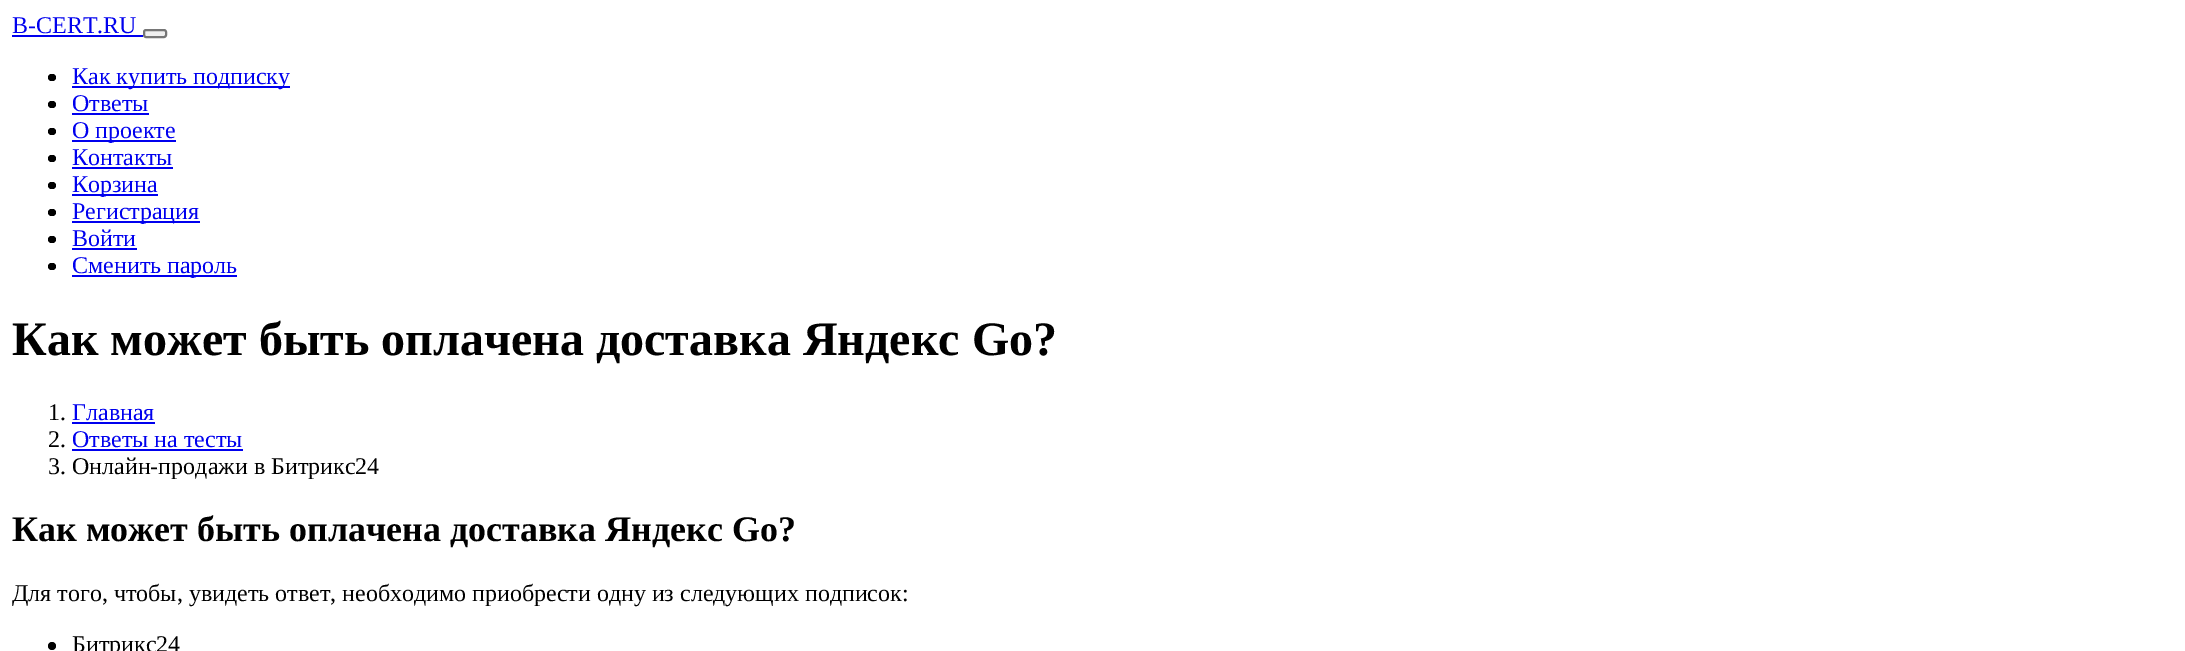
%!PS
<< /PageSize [2185 651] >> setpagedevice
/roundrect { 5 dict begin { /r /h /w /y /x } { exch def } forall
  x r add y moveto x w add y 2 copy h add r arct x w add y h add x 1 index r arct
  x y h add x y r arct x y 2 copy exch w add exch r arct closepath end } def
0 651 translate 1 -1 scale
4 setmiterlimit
1 setgray
0 0 2185 651 rectfill
/LiberationSerif-Regular [24 0 0 -24 0 0] selectfont
0 0 0.933 setrgbcolor
12 33 moveto (B-CERT.RU) show
12 35 131 2 rectfill
0.937 setgray
144 30 22 7 2 roundrect gsave fill grestore
0.463 setgray
2 setlinewidth
stroke
0 setgray
48 74 8 7 3.5 roundrect fill
0 0 0.933 setrgbcolor
72 86 218 2 rectfill
72 84 moveto (Как купить подписку) show
0 setgray
48 101 8 7 3.5 roundrect fill
0 0 0.933 setrgbcolor
72 111 moveto (Ответы) show
72 113 77 2 rectfill
0 setgray
48 128 8 7 3.5 roundrect fill
0 0 0.933 setrgbcolor
72 140 104 2 rectfill
72 138 moveto (О проекте) show
0 setgray
48 155 8 7 3.5 roundrect fill
0 0 0.933 setrgbcolor
72 165 moveto (Контакты) show
72 167 101 2 rectfill
0 setgray
48 182 8 7 3.5 roundrect fill
0 0 0.933 setrgbcolor
72 194 86 2 rectfill
72 192 moveto (Корзина) show
0 setgray
48 209 8 7 3.5 roundrect fill
0 0 0.933 setrgbcolor
72 221 128 2 rectfill
72 219 moveto (Регистрация) show
0 setgray
48 236 8 7 3.5 roundrect fill
0 0 0.933 setrgbcolor
72 246 moveto (Войти) show
72 248 65 2 rectfill
0 setgray
48 263 8 7 3.5 roundrect fill
0 0 0.933 setrgbcolor
72 275 165 2 rectfill
72 273 moveto (Сменить пароль) show
/LiberationSerif-Bold [48 0 0 -48 0 0] selectfont
0 setgray
12 355 moveto (Как может быть оплачена доставка Яндекс Go?) show
/LiberationSerif-Regular [24 0 0 -24 0 0] selectfont
48 420 moveto (1.) show
0 0 0.933 setrgbcolor
72 420 moveto (Главная) show
72 422 83 2 rectfill
0 setgray
48 447 moveto (2.) show
0 0 0.933 setrgbcolor
72 447 moveto (Ответы на тесты) show
72 449 171 2 rectfill
0 setgray
48 474 moveto (3. Онлайн-продажи в Битрикс24) show
/LiberationSerif-Bold [36 0 0 -36 0 0] selectfont
12 541 moveto (Как может быть оплачена доставка Яндекс Go?) show
/LiberationSerif-Regular [24 0 0 -24 0 0] selectfont
12 601 moveto (Для того, чтобы, увидеть ответ, необходимо приобрести одну из следующих подписок:) show
newpath 52 646 4 0 360 arc closepath fill
72 652 moveto (Битрикс24) show
showpage
